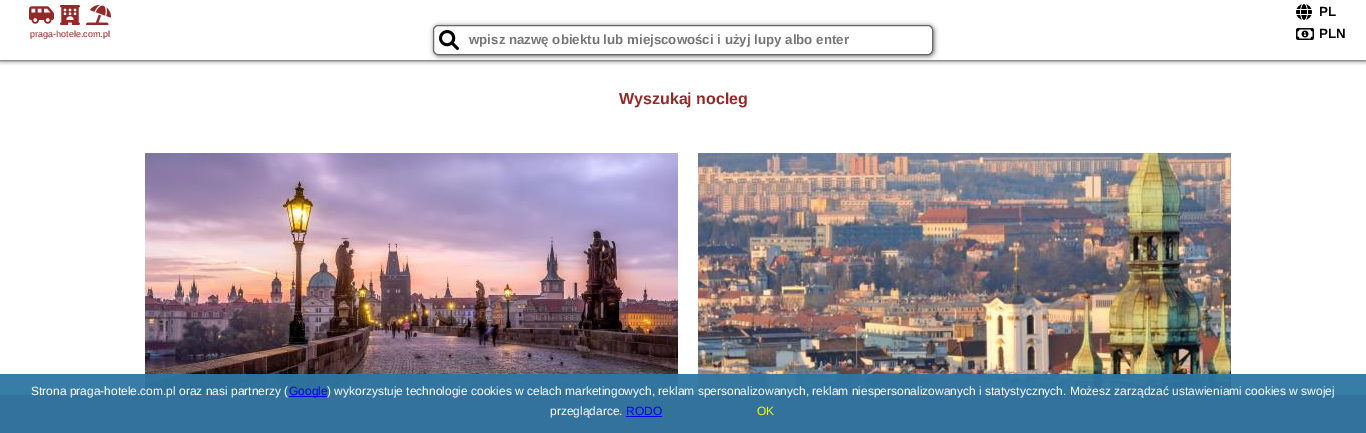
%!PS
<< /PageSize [1366 433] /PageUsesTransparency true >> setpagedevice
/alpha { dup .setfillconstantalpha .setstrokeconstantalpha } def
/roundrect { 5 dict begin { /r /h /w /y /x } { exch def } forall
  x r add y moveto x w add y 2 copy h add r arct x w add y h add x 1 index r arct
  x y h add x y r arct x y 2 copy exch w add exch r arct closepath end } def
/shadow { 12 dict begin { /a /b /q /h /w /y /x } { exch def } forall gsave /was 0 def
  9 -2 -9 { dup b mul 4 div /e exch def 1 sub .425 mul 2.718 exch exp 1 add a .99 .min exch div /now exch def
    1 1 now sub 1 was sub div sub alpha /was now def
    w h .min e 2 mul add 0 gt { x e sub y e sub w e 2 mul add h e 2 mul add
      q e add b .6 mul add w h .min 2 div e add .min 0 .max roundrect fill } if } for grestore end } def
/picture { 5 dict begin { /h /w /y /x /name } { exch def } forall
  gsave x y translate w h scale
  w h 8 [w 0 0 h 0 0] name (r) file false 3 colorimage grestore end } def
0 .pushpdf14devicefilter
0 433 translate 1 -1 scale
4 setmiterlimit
1 setgray
0 0 1366 433 rectfill
gsave
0 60 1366 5 rectclip
0 setgray
0 0 1366 60 0 2.5 1 shadow
grestore
(img1.rgb) 1296 4 16 16 picture
/LiberationSans-Bold [13.3 0 0 -13.3 0 0] selectfont
0 setgray
1319 16 moveto (PL) show
(img2.rgb) 29 6 25 18 picture
(img3.rgb) 60 5 20 20 picture
(img4.rgb) 86 5 25 20 picture
/LiberationSans-Regular [9 0 0 -9 0 0] selectfont
0.58 0.161 0.161 setrgbcolor
30 37 moveto (praga-hotele.com.pl) show
0.404 0.408 0.408 setrgbcolor
434 26 500 30 5 2.5 1 shadow
1 setgray
433.5 25.5 499 29 4.5 roundrect gsave fill grestore
0.404 0.408 0.408 setrgbcolor
stroke
(img5.rgb) 439 30 20 20 picture
/LiberationSans-Bold [13.3 0 0 -13.3 0 0] selectfont
0.459 setgray
469 44 moveto (wpisz nazwę obiektu lub miejscowości i użyj lupy albo enter) show
(img6.rgb) 1296 28 18 12 picture
0 setgray
1319 38 moveto (PLN) show
/LiberationSans-Bold [16 0 0 -16 0 0] selectfont
0.58 0.161 0.161 setrgbcolor
619 104 moveto (Wyszukaj nocleg) show
(img7.rgb) 145 153 533 242 picture
(img8.rgb) 698 153 533 242 picture
0 395 1366 38 0 1 1 shadow
0 395 1366 38 rectfill
0.95 alpha
0.176 0.463 0.635 setrgbcolor
0 374 1366 59 rectfill
/LiberationSans-Regular [12 0 0 -12 0 0] selectfont
1 alpha
1 setgray
31 395 moveto (Strona praga-hotele.com.pl oraz nasi partnerzy \() show
0 0 0.933 setrgbcolor
289 396 38 1 rectfill
289 395 moveto (Google) show
1 setgray
327 395 moveto (\) wykorzystuje technologie cookies w celach marketingowych, reklam spersonalizowanych, reklam niespersonalizowanych i statystycznych. Możesz zarządzać ustawieniami cookies w swojej) show
550 415 moveto (przeglądarce.) show
0 0 0.933 setrgbcolor
626 415 moveto (RODO) show
626 416 36 1 rectfill
1 1 0 setrgbcolor
757 415 moveto (OK) show
.poppdf14devicefilter showpage
